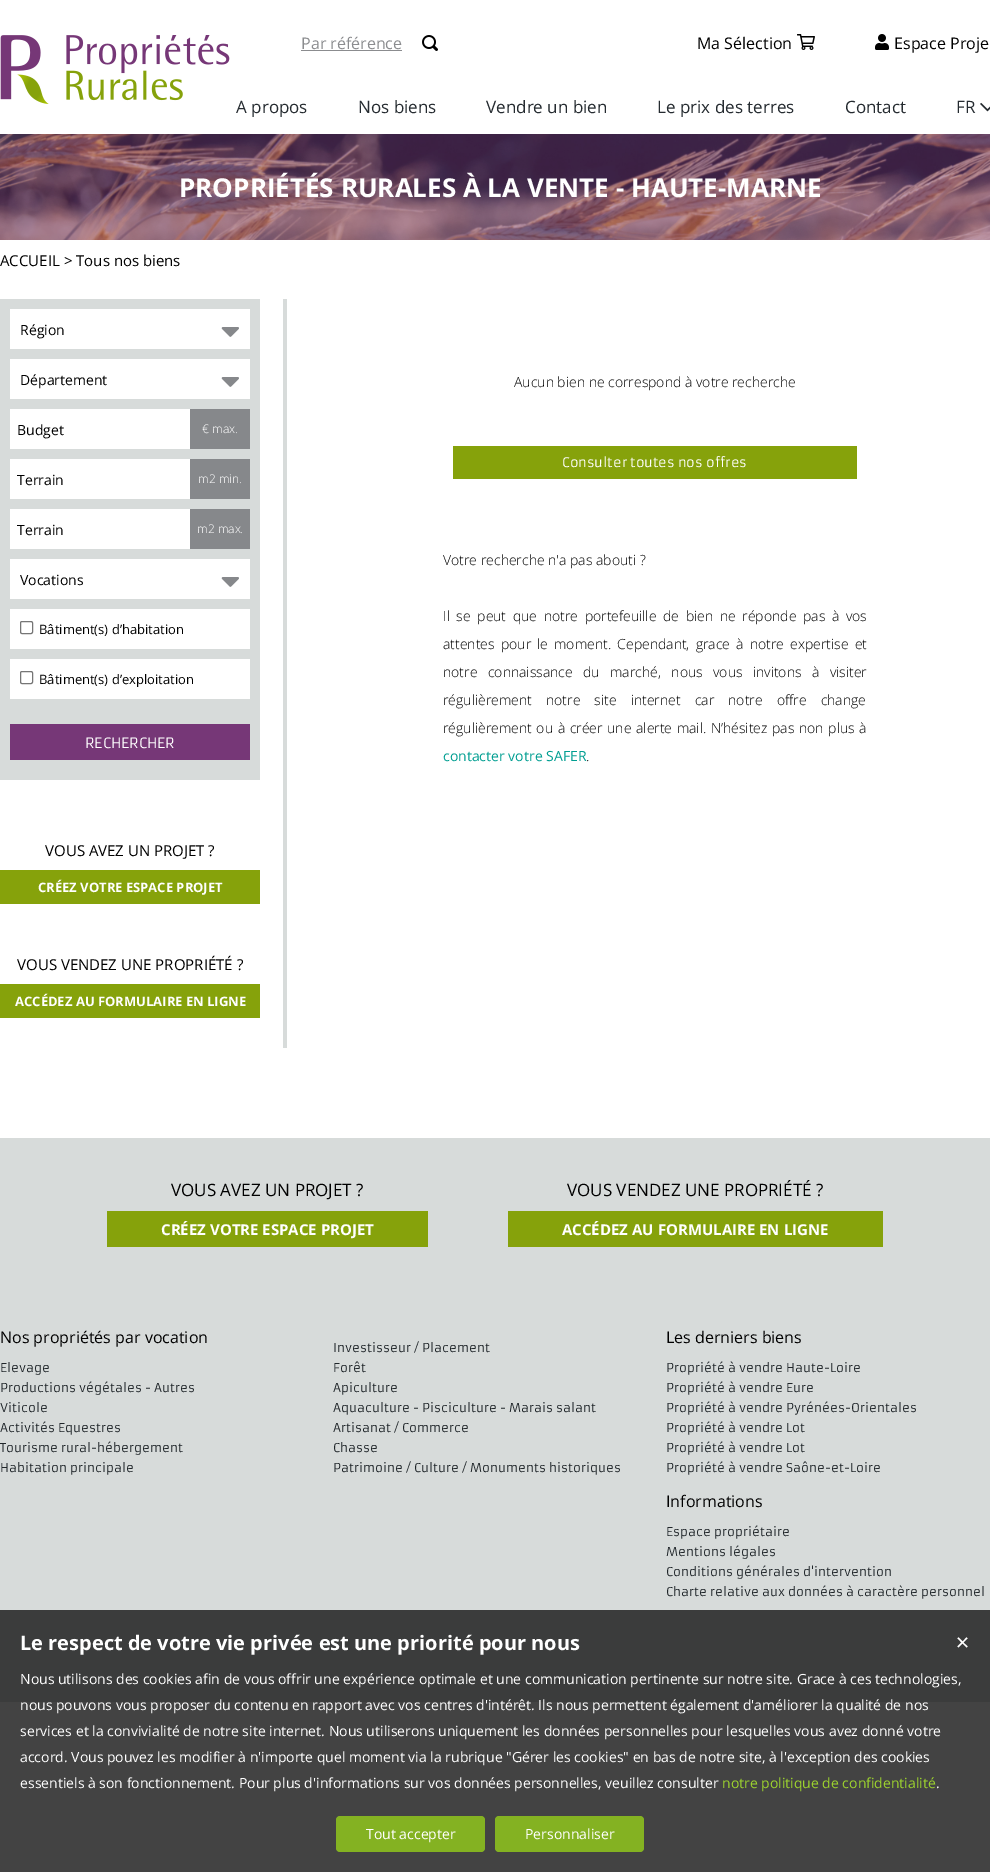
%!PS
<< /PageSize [990 1872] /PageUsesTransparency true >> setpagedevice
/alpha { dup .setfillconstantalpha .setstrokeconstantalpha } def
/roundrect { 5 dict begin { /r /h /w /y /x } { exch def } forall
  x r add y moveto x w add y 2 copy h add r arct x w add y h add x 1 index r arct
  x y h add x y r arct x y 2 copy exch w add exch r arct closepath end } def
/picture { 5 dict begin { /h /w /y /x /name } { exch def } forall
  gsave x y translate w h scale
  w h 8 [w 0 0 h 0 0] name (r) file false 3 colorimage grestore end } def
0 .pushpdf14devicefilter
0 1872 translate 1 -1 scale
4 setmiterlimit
1 setgray
0 0 990 1872 rectfill
(img1.rgb) 0 35 230 69 picture
/OpenSans-Regular [16 0 0 -16 0 0] selectfont
0.545 0.549 0.561 setrgbcolor
301 49 moveto (Par référence) show
301 50 101 1 rectfill
(img2.rgb) 422 35 16 16 picture
0 setgray
697 49 moveto (Ma Sélection) show
(img3.rgb) 797 34 18 16 picture
(img4.rgb) 875 34 14 16 picture
894 49 moveto (Espace Proje) show
/OpenSans-Regular [17 0 0 -17 0 0] selectfont
0.145 0.169 0.188 setrgbcolor
236 113 moveto (A propos) show
358 113 moveto (Nos biens) show
486 113 moveto (Vendre un bien) show
657 113 moveto (Le prix des terres) show
845 113 moveto (Contact) show
956 113 moveto (FR) show
(img5.rgb) 980 102 10 10 picture
(img6.rgb) 0 134 990 106 picture
/OpenSans-Bold [26 0 0 -26 0 0] selectfont
1 setgray
179 197 moveto (PROPRIÉTÉS RURALES À LA VENTE - HAUTE-MARNE) show
/OpenSans-Regular [15 0 0 -15 0 0] selectfont
0 setgray
0 266 moveto (ACCUEIL > Tous nos biens) show
0.843 0.859 0.855 setrgbcolor
0 299 260 481 rectfill
1 setgray
10 309 240 40 rectfill
/OpenSans-Regular [14 0 0 -14 0 0] selectfont
0 setgray
20 335 moveto (Région) show
(img7.rgb) 221 327 18 10 picture
1 setgray
10 359 240 40 rectfill
0 setgray
20 385 moveto (Département) show
(img7.rgb) 221 377 18 10 picture
1 setgray
10 409 180 40 rectfill
0 setgray
17 435 moveto (Budget) show
0.525 0.533 0.545 setrgbcolor
190 409 60 40 rectfill
/OpenSans-Light [12 0 0 -12 0 0] selectfont
1 setgray
202 433 moveto (€ max.) show
10 459 180 40 rectfill
/OpenSans-Regular [14 0 0 -14 0 0] selectfont
0 setgray
17 485 moveto (Terrain) show
0.525 0.533 0.545 setrgbcolor
190 459 60 40 rectfill
/OpenSans-Light [12 0 0 -12 0 0] selectfont
1 setgray
198 483 moveto (m2 min.) show
10 509 180 40 rectfill
/OpenSans-Regular [14 0 0 -14 0 0] selectfont
0 setgray
17 535 moveto (Terrain) show
0.525 0.533 0.545 setrgbcolor
190 509 60 40 rectfill
/OpenSans-Light [12 0 0 -12 0 0] selectfont
1 setgray
197 533 moveto (m2 max.) show
10 559 240 40 rectfill
/OpenSans-Regular [14 0 0 -14 0 0] selectfont
0 setgray
20 585 moveto (Vocations) show
(img7.rgb) 221 577 18 10 picture
1 setgray
10 609 240 40 rectfill
0.463 setgray
20.5 621.5 12 12 1.5 roundrect stroke
/OpenSans-Regular [13 0 0 -13 0 0] selectfont
0 setgray
39 634 moveto (Bâtiment\(s\) d’habitation) show
1 setgray
10 659 240 40 rectfill
0.463 setgray
20.5 671.5 12 12 1.5 roundrect stroke
0 setgray
39 684 moveto (Bâtiment\(s\) d’exploitation) show
0.463 0.216 0.467 setrgbcolor
10 724 240 36 rectfill
/Armata-Regular [14 0 0 -14 0 0] selectfont
1 setgray
85 748 moveto (RECHERCHER) show
/OpenSans-Regular [15 0 0 -15 0 0] selectfont
0 setgray
45 856 moveto (VOUS AVEZ UN PROJET ?) show
0.525 0.635 0.043 setrgbcolor
0 870 260 34 rectfill
/OpenSans-Bold [13 0 0 -13 0 0] selectfont
1 setgray
38 892 moveto (CRÉEZ VOTRE ESPACE PROJET) show
/OpenSans-Regular [15 0 0 -15 0 0] selectfont
0 setgray
17 970 moveto (VOUS VENDEZ UNE PROPRIÉTÉ ?) show
0.525 0.635 0.043 setrgbcolor
0 984 260 34 rectfill
/OpenSans-Bold [13 0 0 -13 0 0] selectfont
1 setgray
15 1006 moveto (ACCÉDEZ AU FORMULAIRE EN LIGNE) show
0.843 0.859 0.855 setrgbcolor
283 299 4 749 rectfill
/OpenSans-Light [14 0 0 -14 0 0] selectfont
0 setgray
514 387 moveto (Aucun bien ne correspond à votre recherche) show
0.525 0.635 0.043 setrgbcolor
453 446 404 33 rectfill
/Armata-Regular [13 0 0 -13 0 0] selectfont
1 setgray
562 467 moveto (Consulter toutes nos offres) show
/OpenSans-Light [14 0 0 -14 0 0] selectfont
0 setgray
443 565 moveto (Votre recherche n'a pas abouti ?) show
443 621 moveto 3 0 32 (Il se peut que notre portefeuille de bien ne réponde pas à vos) widthshow
443 649 moveto 2.5 0 32 (attentes pour le moment. Cependant, grace à notre expertise et) widthshow
443 677 moveto 6.75 0 32 (notre connaissance du marché, nous vous invitons à visiter) widthshow
443 705 moveto 10.5 0 32 (régulièrement notre site internet car notre offre change) widthshow
443 733 moveto 1 0 32 (régulièrement ou à créer une alerte mail. N’hésitez pas non plus à) widthshow
/OpenSans-Regular [14 0 0 -14 0 0] selectfont
0 0.62 0.569 setrgbcolor
443 761 moveto (contacter votre SAFER) show
/OpenSans-Light [14 0 0 -14 0 0] selectfont
0 setgray
586 761 moveto (.) show
0.843 0.859 0.855 setrgbcolor
0 1138 990 564 rectfill
/OpenSans-Regular [17 0 0 -17 0 0] selectfont
0 setgray
171 1196 moveto (VOUS AVEZ UN PROJET ?) show
0.525 0.635 0.043 setrgbcolor
107 1211 321 36 rectfill
/OpenSans-Bold [15 0 0 -15 0 0] selectfont
1 setgray
161 1235 moveto (CRÉEZ VOTRE ESPACE PROJET) show
/OpenSans-Regular [17 0 0 -17 0 0] selectfont
0 setgray
567 1196 moveto (VOUS VENDEZ UNE PROPRIÉTÉ ?) show
0.525 0.635 0.043 setrgbcolor
508 1211 375 36 rectfill
/OpenSans-Bold [15 0 0 -15 0 0] selectfont
1 setgray
562 1235 moveto (ACCÉDEZ AU FORMULAIRE EN LIGNE) show
/OpenSans-Regular [16 0 0 -16 0 0] selectfont
0 setgray
0 1343 moveto (Nos propriétés par vocation) show
/Armata-Regular [12 0 0 -12 0 0] selectfont
0.122 0.145 0.161 setrgbcolor
0 1372 moveto (Elevage) show
0 1392 moveto (Productions végétales - Autres) show
0 1412 moveto (Viticole) show
0 1432 moveto (Activités Equestres) show
0 1452 moveto (Tourisme rural-hébergement) show
0 1472 moveto (Habitation principale) show
333 1352 moveto (Investisseur / Placement) show
333 1372 moveto (Forêt) show
333 1392 moveto (Apiculture) show
333 1412 moveto (Aquaculture - Pisciculture - Marais salant) show
333 1432 moveto (Artisanat / Commerce) show
333 1452 moveto (Chasse) show
333 1472 moveto (Patrimoine / Culture / Monuments historiques) show
/OpenSans-Regular [16 0 0 -16 0 0] selectfont
0 setgray
666 1343 moveto (Les derniers biens) show
/Armata-Regular [12 0 0 -12 0 0] selectfont
0.122 0.145 0.161 setrgbcolor
666 1372 moveto (Propriété à vendre Haute-Loire) show
666 1392 moveto (Propriété à vendre Eure) show
666 1412 moveto (Propriété à vendre Pyrénées-Orientales) show
666 1432 moveto (Propriété à vendre Lot) show
666 1452 moveto (Propriété à vendre Lot) show
666 1472 moveto (Propriété à vendre Saône-et-Loire) show
/OpenSans-Regular [16 0 0 -16 0 0] selectfont
0 setgray
666 1507 moveto (Informations) show
/Armata-Regular [12 0 0 -12 0 0] selectfont
0.122 0.145 0.161 setrgbcolor
666 1536 moveto (Espace propriétaire) show
666 1556 moveto (Mentions légales) show
666 1576 moveto (Conditions générales d'intervention) show
666 1596 moveto (Charte relative aux données à caractère personnel) show
0.8 alpha
0.078 setgray
0 1610 990 262 rectfill
/OpenSans-Bold [20 0 0 -20 0 0] selectfont
1 alpha
1 setgray
20 1650 moveto (Le respect de votre vie privée est une priorité pour nous) show
/DejaVuSans-Regular [18 0 0 -18 0 0] selectfont
955 1649 moveto (✕) show
/OpenSans-Regular [14 0 0 -14 0 0] selectfont
20 1684 moveto (Nous utilisons des cookies afin de vous offrir une expérience optimale et une communication pertinente sur notre site. Grace à ces technologies,) show
20 1710 moveto (nous pouvons vous proposer du contenu en rapport avec vos centres d'intérêt. Ils nous permettent également d'améliorer la qualité de nos) show
20 1736 moveto (services et la convivialité de notre site internet. Nous utiliserons uniquement les données personnelles pour lesquelles vous avez donné votre) show
20 1762 moveto (accord. Vous pouvez les modifier à n'importe quel moment via la rubrique "Gérer les cookies" en bas de notre site, à l'exception des cookies) show
20 1788 moveto (essentiels à son fonctionnement. Pour plus d'informations sur vos données personnelles, veuillez consulter) show
0.612 0.824 0.18 setrgbcolor
722 1788 moveto (notre politique de confidentialité) show
1 setgray
936 1788 moveto (.) show
0.518 0.698 0.133 setrgbcolor
336 1816 149 36 4 roundrect fill
1 setgray
366 1839 moveto (Tout accepter) show
0.518 0.698 0.133 setrgbcolor
495 1816 149 36 4 roundrect fill
1 setgray
525 1839 moveto (Personnaliser) show
.poppdf14devicefilter showpage
